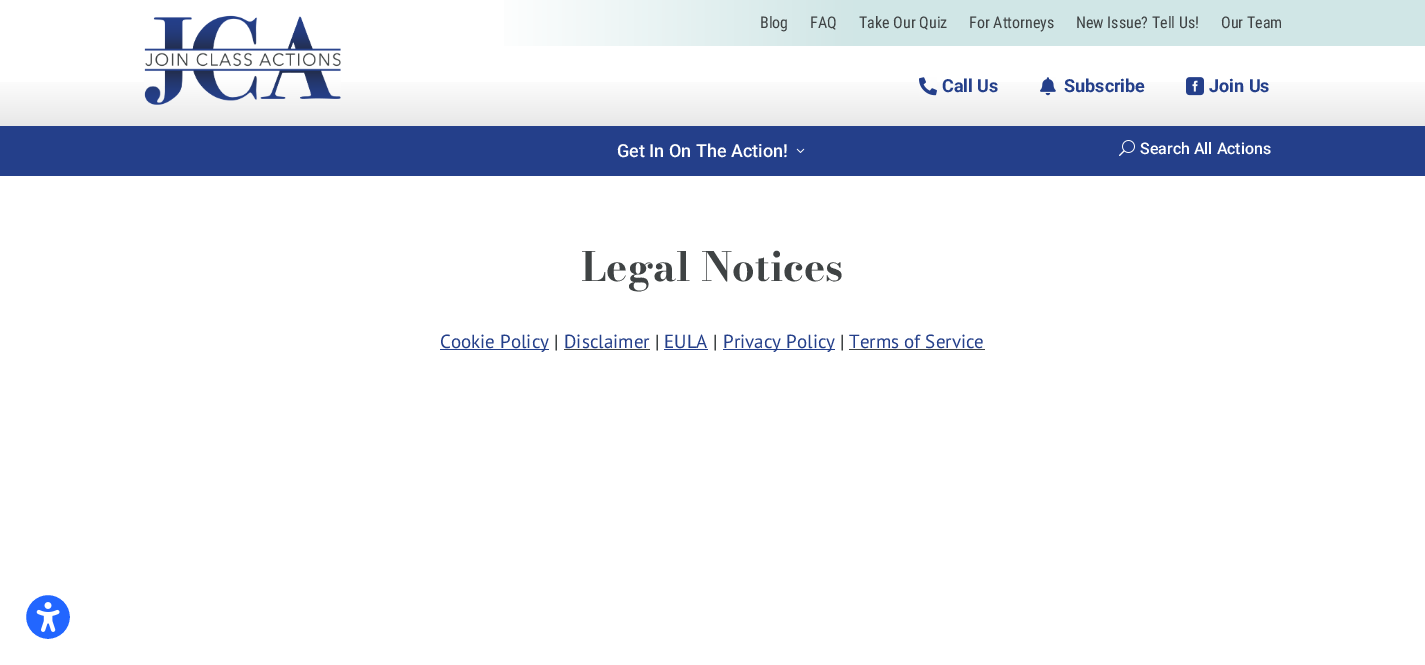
%!PS
<< /PageSize [1425 665] >> setpagedevice
/picture { 5 dict begin { /h /w /y /x /name } { exch def } forall
  gsave x y translate w h scale
  w h 8 [w 0 0 h 0 0] name (r) file false 3 colorimage grestore end } def
0 665 translate 1 -1 scale
4 setmiterlimit
1 setgray
0 0 1425 665 rectfill
gsave newpath 504 0 moveto 1425 0 lineto 1425 46 lineto 504 46 lineto closepath clip newpath
<< /ShadingType 2 /ColorSpace /DeviceRGB /Coords [0 23 1425 23] /Extend [true true] /Function << /FunctionType 3 /Domain [0 1] /Functions [<< /FunctionType 2 /Domain [0 1] /C0 [1 1 1] /C1 [1 1 1] /N 1 >> << /FunctionType 2 /Domain [0 1] /C0 [1 1 1] /C1 [0.816 0.902 0.902] /N 1 >> << /FunctionType 2 /Domain [0 1] /C0 [0.816 0.902 0.902] /C1 [0.816 0.902 0.902] /N 1 >>] /Bounds [0.34 0.6] /Encode [0 1 0 1 0 1] >> >> shfill grestore
/RobotoCondensed-Regular [16 0 0 -16 0 0] selectfont
0.247 0.263 0.267 setrgbcolor
760 28 moveto (Blog) show
810 28 moveto (FAQ) show
859 28 moveto (Take Our Quiz) show
969 28 moveto (For Attorneys) show
1076 28 moveto (New Issue? Tell Us!) show
1221 28 moveto (Our Team) show
gsave newpath 0 82 moveto 1425 82 lineto 1425 126 lineto 0 126 lineto closepath clip newpath
<< /ShadingType 2 /ColorSpace /DeviceRGB /Coords [713 46 713 126] /Extend [true true] /Function << /FunctionType 3 /Domain [0 1] /Functions [<< /FunctionType 2 /Domain [0 1] /C0 [1 1 1] /C1 [1 1 1] /N 1 >> << /FunctionType 2 /Domain [0 1] /C0 [1 1 1] /C1 [0.91 0.91 0.91] /N 1 >> << /FunctionType 2 /Domain [0 1] /C0 [0.91 0.91 0.91] /C1 [0.91 0.91 0.91] /N 1 >>] /Bounds [0.38 0.98] /Encode [0 1 0 1 0 1] >> >> shfill grestore
(img1.rgb) 144 15 197 90 picture
(img2.rgb) 919 77 18 19 picture
/Roboto-Bold [18 0 0 -18 0 0] selectfont
0.141 0.247 0.541 setrgbcolor
942 92 moveto (Call Us) show
(img3.rgb) 1040 77 16 19 picture
1064 92 moveto (Subscribe) show
(img4.rgb) 1186 77 18 19 picture
1209 92 moveto (Join Us) show
0 126 1425 50 rectfill
/Roboto-Medium [18 0 0 -18 0 0] selectfont
1 setgray
617 157 moveto (Get In On The Action!) show
(img5.rgb) 796 148 9 5 picture
(img6.rgb) 1119 140 16 16 picture
/Roboto-Medium [16 0 0 -16 0 0] selectfont
1140 154 moveto (Search All Actions) show
/BodoniModa-Bold [40 0 0 -40 0 0] selectfont
0.247 0.263 0.267 setrgbcolor
581 281 moveto (Legal Notices) show
0.141 0.247 0.541 setrgbcolor
440 349 109 1 rectfill
/PTSans-Regular [19 0 0 -19 0 0] selectfont
440 348 moveto (Cookie Policy) show
0.247 0.263 0.267 setrgbcolor
554 348 moveto (|) show
0.141 0.247 0.541 setrgbcolor
564 348 moveto (Disclaimer) show
0.247 0.263 0.267 setrgbcolor
564 349 86 1 rectfill
655 348 moveto (|) show
0.141 0.247 0.541 setrgbcolor
664 348 moveto (EULA) show
664 349 44 1 rectfill
0.247 0.263 0.267 setrgbcolor
713 348 moveto (|) show
0.141 0.247 0.541 setrgbcolor
723 349 112 1 rectfill
723 348 moveto (Privacy Policy) show
0.247 0.263 0.267 setrgbcolor
840 348 moveto (|) show
0.141 0.247 0.541 setrgbcolor
849 348 moveto (Terms of Service) show
0.247 0.263 0.267 setrgbcolor
849 349 136 1 rectfill
0.133 0.4 1 setrgbcolor
newpath 48 617 23 0 360 arc closepath gsave fill grestore
1 setgray
2 setlinewidth
stroke
(img7.rgb) 36 602 24 30 picture
showpage
